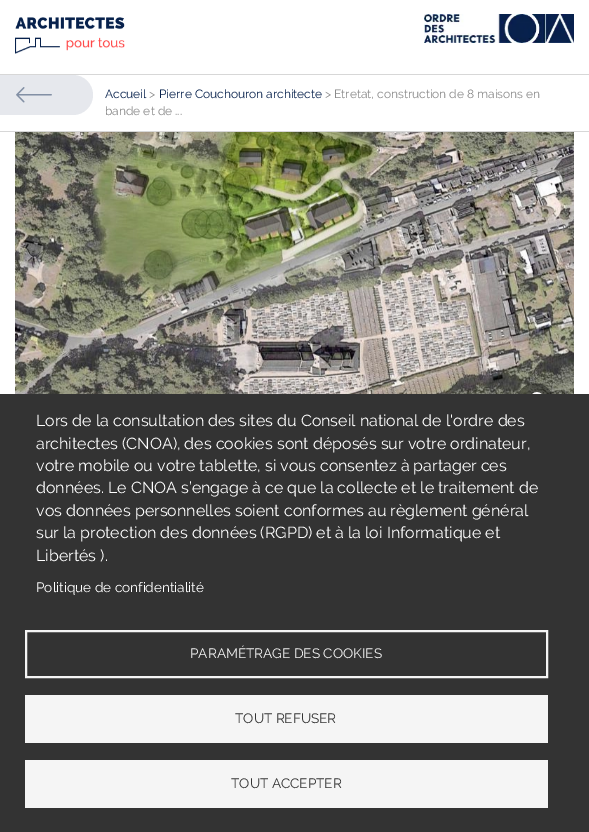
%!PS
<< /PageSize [589 832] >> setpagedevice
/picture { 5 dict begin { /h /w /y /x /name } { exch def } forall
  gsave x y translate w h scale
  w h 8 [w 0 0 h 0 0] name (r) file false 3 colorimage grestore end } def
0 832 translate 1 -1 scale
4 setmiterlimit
1 setgray
0 0 589 832 rectfill
(img1.rgb) 15 17 110 37 picture
(img2.rgb) 424 14 150 29 picture
0.843 setgray
0 74 589 1 rectfill
0 131 589 1 rectfill
0.902 0.91 0.929 setrgbcolor
newpath -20 75 moveto 73 75 lineto 84 75 93 84 93 95 curveto 93 106 84 115 73 115 curveto -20 115 lineto closepath fill
(img3.rgb) 16 87 36 16 picture
/Raleway-Regular [12 0 0 -12 0 0] selectfont
0.027 0.129 0.298 setrgbcolor
105 98 moveto (Accueil) show
0.541 setgray
149 98 moveto (>) show
0.027 0.129 0.298 setrgbcolor
159 98 moveto (Pierre Couchouron architecte) show
0.541 setgray
325 98 moveto (> Etretat, construction de 8 maisons en) show
105 115 moveto (bande et de ...) show
(img4.rgb) 15 132 559 262 picture
(img5.rgb) 518 383 34 11 picture
0.2 setgray
0 394 589 438 rectfill
/Raleway-Regular [16 0 0 -16 0 0] selectfont
1 setgray
36 426 moveto (Lors de la consultation des sites du Conseil national de l'ordre des) show
36 449 moveto (architectes \(CNOA\), des cookies sont déposés sur votre ordinateur,) show
36 471 moveto (votre mobile ou votre tablette, si vous consentez à partager ces) show
36 493 moveto (données. Le CNOA s’engage à ce que la collecte et le traitement de) show
36 516 moveto (vos données personnelles soient conformes au règlement général) show
36 538 moveto (sur la protection des données \(RGPD\) et à la loi Informatique et) show
36 561 moveto (Libertés \).) show
/Raleway-Regular [13.6 0 0 -13.6 0 0] selectfont
36 592 moveto (Politique de confidentialité) show
0.961 setgray
2 setlinewidth
26 631 521 46 rectstroke
190 658 moveto (PARAMÉTRAGE DES COOKIES) show
25 695 523 48 rectfill
0.2 setgray
235 723 moveto (TOUT REFUSER) show
0.961 setgray
25 760 523 48 rectfill
0.2 setgray
231 788 moveto (TOUT ACCEPTER) show
showpage
